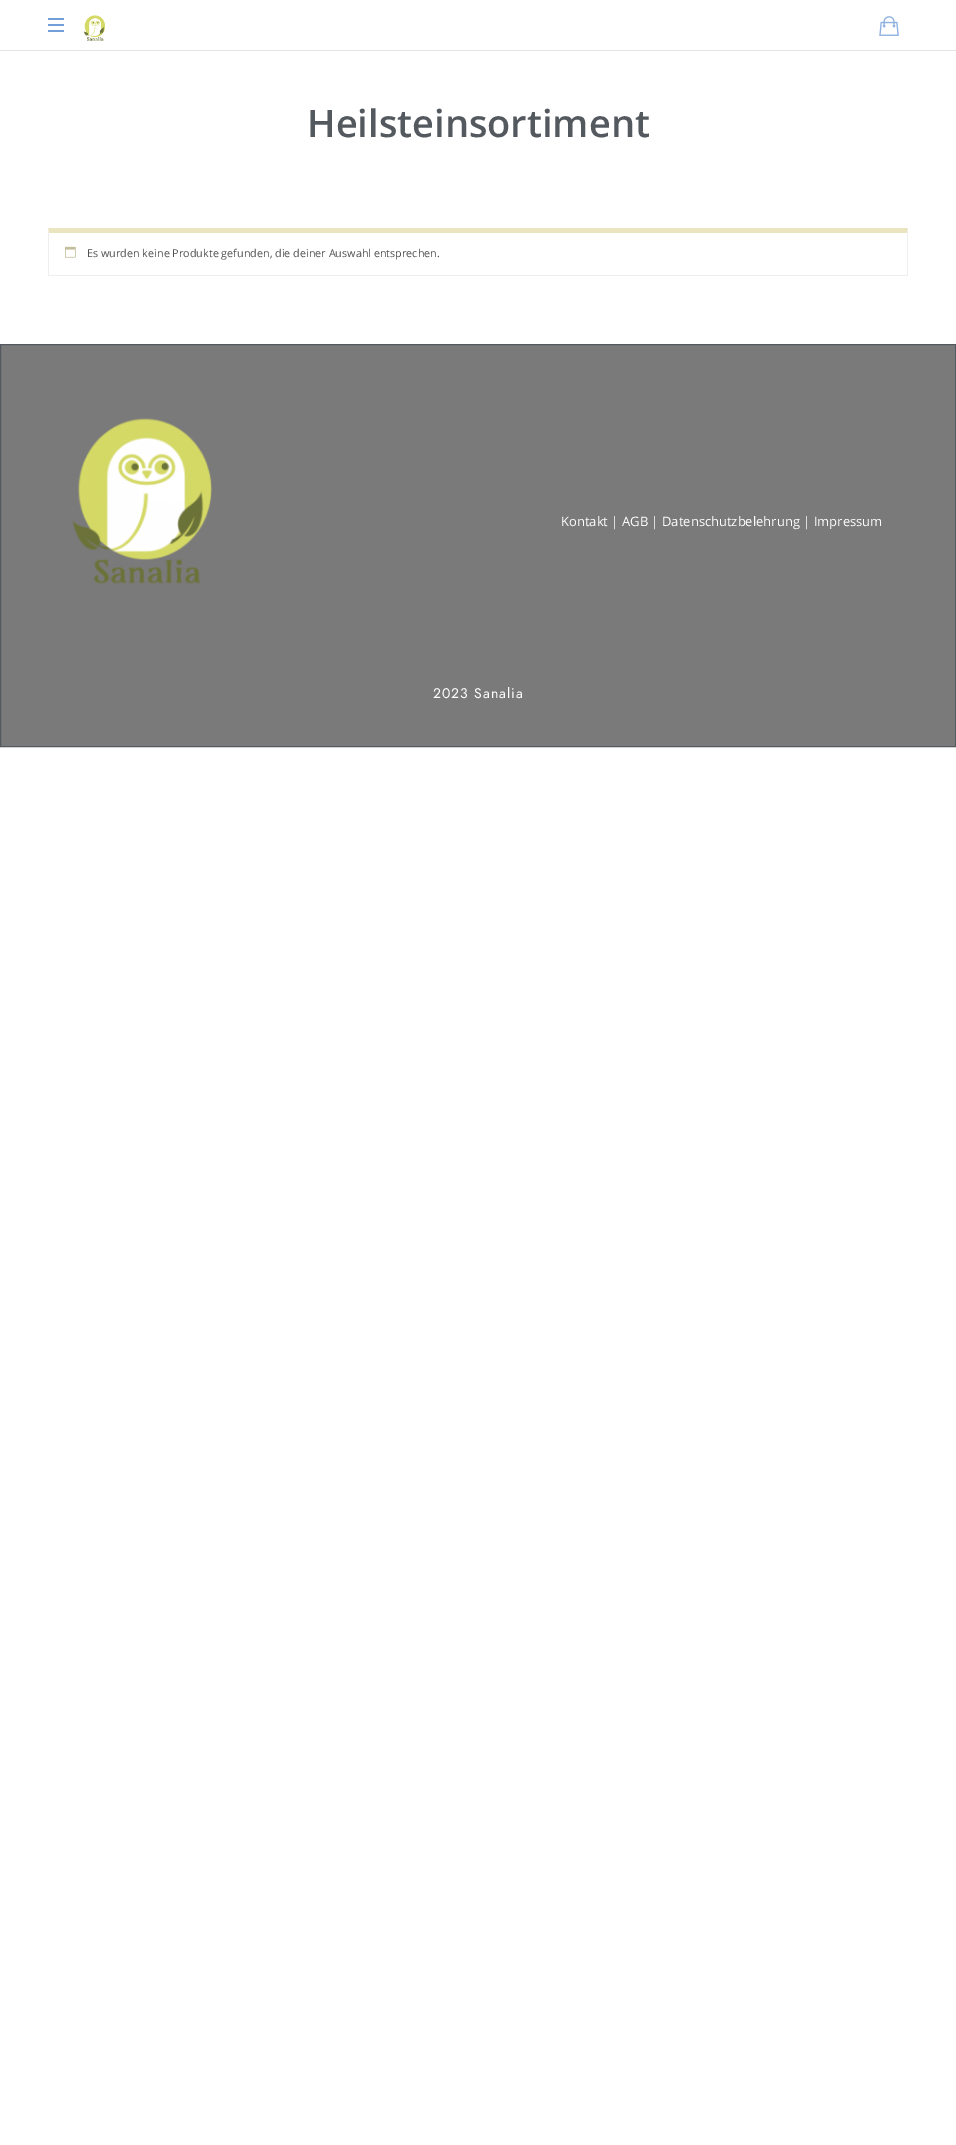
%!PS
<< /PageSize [956 2145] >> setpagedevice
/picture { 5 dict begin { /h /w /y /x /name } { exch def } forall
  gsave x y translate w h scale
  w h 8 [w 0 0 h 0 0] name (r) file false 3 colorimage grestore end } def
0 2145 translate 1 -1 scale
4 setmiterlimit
1 setgray
0 0 956 2145 rectfill
(img1.rgb) 83 15 22 26 picture
0.451 0.624 0.851 setrgbcolor
48 24 16 2 rectfill
48 18 16 2 rectfill
48 30 16 2 rectfill
(img2.rgb) 879 16 20 20 picture
0.894 setgray
0 50 956 1 rectfill
/OpenSans-SemiBold [38 0 0 -38 0 0] selectfont
0.329 0.349 0.373 setrgbcolor
307 137 moveto (Heilsteinsortiment) show
0.918 0.898 0.749 setrgbcolor
newpath 48 228 moveto 908 228 lineto 907 233 lineto 49 233 lineto closepath fill
0.933 setgray
newpath 908 228 moveto 908 276 lineto 907 275 lineto 907 233 lineto closepath fill
48 275 860 1 rectfill
newpath 48 276 moveto 48 228 lineto 49 233 lineto 49 275 lineto closepath fill
(img3.rgb) 65 246 11 12 picture
/OpenSans-Regular [10.8 0 0 -10.8 0 0] selectfont
0.318 setgray
87 257 moveto (Es wurden keine Produkte gefunden, die deiner Auswahl entsprechen.) show
0.478 setgray
1 345 954 401 rectfill
(img4.rgb) 72 418 140 166 picture
0.329 0.349 0.373 setrgbcolor
0.5 344.5 955 402 rectstroke
/OpenSans-Regular [13 0 0 -13 0 0] selectfont
1 setgray
561 526 moveto (Kontakt | AGB | Datenschutzbelehrung | Impressum) show
/Jost-Regular [14 0 0 -14 0 0] selectfont
433 698 moveto 1 0 (2023 Sanalia) ashow
showpage
